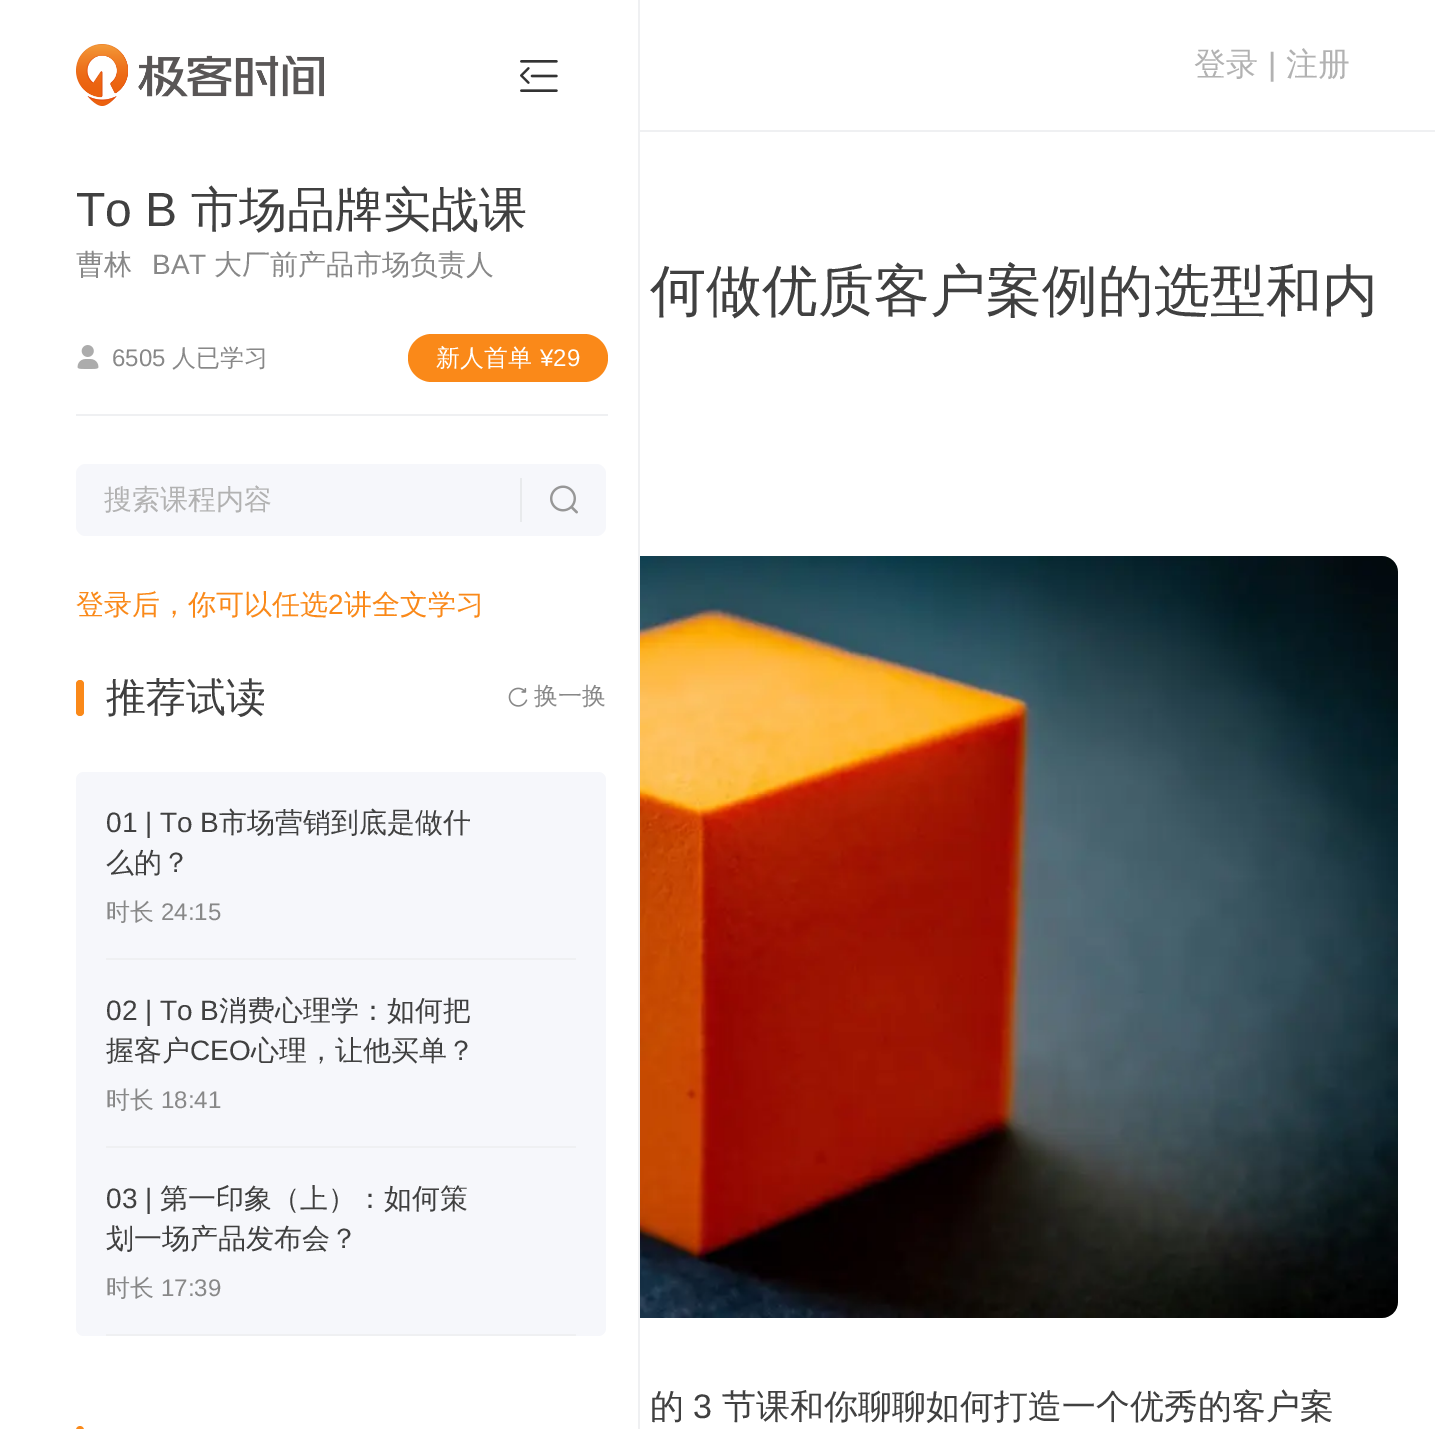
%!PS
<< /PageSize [1435 1429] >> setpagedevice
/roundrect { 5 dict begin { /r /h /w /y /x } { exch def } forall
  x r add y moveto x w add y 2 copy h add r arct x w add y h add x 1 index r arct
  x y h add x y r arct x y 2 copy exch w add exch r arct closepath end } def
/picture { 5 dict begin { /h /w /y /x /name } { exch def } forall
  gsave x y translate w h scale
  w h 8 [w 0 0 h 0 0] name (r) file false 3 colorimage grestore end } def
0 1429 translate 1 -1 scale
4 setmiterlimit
1 setgray
0 0 1435 1429 rectfill
0.937 0.941 0.949 setrgbcolor
638 0 2 1429 rectfill
(img1.rgb) 76 44 248 62 picture
(img2.rgb) 520 60 38 32 picture
76 414 532 2 rectfill
/LiberationSans-Regular [48 0 0 -48 0 0] selectfont
0.251 setgray
76 226 moveto (To B) show
/WenQuanYiZenHei-Medium [48 0 0 -48 0 0] selectfont
191 226 moveto (市场品牌实战课) show
/WenQuanYiZenHei-Medium [28 0 0 -28 0 0] selectfont
0.533 setgray
76 274 moveto (曹林) show
/LiberationSans-Regular [28 0 0 -28 0 0] selectfont
152 274 moveto (BAT) show
/WenQuanYiZenHei-Medium [28 0 0 -28 0 0] selectfont
214 274 moveto (大厂前产品市场负责人) show
(img3.rgb) 77 345 22 24 picture
/LiberationSans-Regular [24 0 0 -24 0 0] selectfont
112 366 moveto (6505) show
/WenQuanYiZenHei-Medium [24 0 0 -24 0 0] selectfont
172 366 moveto (人已学习) show
0.98 0.537 0.098 setrgbcolor
408 334 200 48 24 roundrect fill
1 setgray
436 366 moveto (新⼈⾸单) show
/LiberationSans-Regular [24 0 0 -24 0 0] selectfont
540 366 moveto (¥29) show
0.965 0.969 0.984 setrgbcolor
76 464 530 72 10 roundrect fill
/WenQuanYiZenHei-Medium [28 0 0 -28 0 0] selectfont
0.698 setgray
104 509 moveto (搜索课程内容) show
0.91 0.918 0.925 setrgbcolor
520 478 2 44 rectfill
(img4.rgb) 550 485 28 29 picture
0.98 0.537 0.098 setrgbcolor
76 614 moveto (登录后，你可以任选) show
/LiberationSans-Regular [28 0 0 -28 0 0] selectfont
328 614 moveto (2) show
/WenQuanYiZenHei-Medium [28 0 0 -28 0 0] selectfont
344 614 moveto (讲全文学习) show
76 680 8 36 4 roundrect fill
/WenQuanYiZenHei-Medium [40 0 0 -40 0 0] selectfont
0.251 setgray
106 711 moveto (推荐试读) show
(img5.rgb) 508 687 20 20 picture
/WenQuanYiZenHei-Medium [24 0 0 -24 0 0] selectfont
0.533 setgray
534 704 moveto (换一换) show
0.965 0.969 0.984 setrgbcolor
76 772 530 564 8 roundrect fill
0.937 0.941 0.949 setrgbcolor
106 958 470 2 rectfill
/LiberationSans-Regular [28 0 0 -28 0 0] selectfont
0.251 setgray
106 832 moveto (01 | To B) show
/WenQuanYiZenHei-Medium [28 0 0 -28 0 0] selectfont
219 832 moveto (市场营销到底是做什) show
106 872 moveto (么的？) show
/WenQuanYiZenHei-Medium [24 0 0 -24 0 0] selectfont
0.533 setgray
106 920 moveto (时长) show
/LiberationSans-Regular [24 0 0 -24 0 0] selectfont
161 920 moveto (24:15) show
0.937 0.941 0.949 setrgbcolor
106 1146 470 2 rectfill
/LiberationSans-Regular [28 0 0 -28 0 0] selectfont
0.251 setgray
106 1020 moveto (02 | To B) show
/WenQuanYiZenHei-Medium [28 0 0 -28 0 0] selectfont
219 1020 moveto (消费心理学：如何把) show
106 1060 moveto (握客户) show
/LiberationSans-Regular [28 0 0 -28 0 0] selectfont
190 1060 moveto (CEO) show
/WenQuanYiZenHei-Medium [28 0 0 -28 0 0] selectfont
251 1060 moveto (心理，让他买单？) show
/WenQuanYiZenHei-Medium [24 0 0 -24 0 0] selectfont
0.533 setgray
106 1108 moveto (时长) show
/LiberationSans-Regular [24 0 0 -24 0 0] selectfont
161 1108 moveto (18:41) show
0.937 0.941 0.949 setrgbcolor
106 1334 470 2 rectfill
/LiberationSans-Regular [28 0 0 -28 0 0] selectfont
0.251 setgray
106 1208 moveto (03 |) show
/WenQuanYiZenHei-Medium [28 0 0 -28 0 0] selectfont
160 1208 moveto (第一印象（上）：如何策) show
106 1248 moveto (划一场产品发布会？) show
/WenQuanYiZenHei-Medium [24 0 0 -24 0 0] selectfont
0.533 setgray
106 1296 moveto (时长) show
/LiberationSans-Regular [24 0 0 -24 0 0] selectfont
161 1296 moveto (17:39) show
0.98 0.537 0.098 setrgbcolor
newpath 80 1426 moveto 82 1426 84 1428 84 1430 curveto 76 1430 lineto 76 1428 78 1426 80 1426 curveto closepath fill
0.937 0.941 0.949 setrgbcolor
640 130 795 2 rectfill
/WenQuanYiZenHei-Medium [32 0 0 -32 0 0] selectfont
0.698 setgray
1194 75 moveto (登录) show
/LiberationSans-Regular [32 0 0 -32 0 0] selectfont
1268 75 moveto (|) show
/WenQuanYiZenHei-Medium [32 0 0 -32 0 0] selectfont
1286 75 moveto (注册) show
/WenQuanYiZenHei-Medium [56 0 0 -56 0 0] selectfont
0.251 setgray
650 310 moveto (何做优质客户案例的选型和内) show
(img6.rgb) 640 556 758 762 picture
/WenQuanYiZenHei-Medium [34 0 0 -34 0 0] selectfont
650 1418 moveto (的) show
/LiberationSans-Regular [34 0 0 -34 0 0] selectfont
693 1418 moveto (3) show
/WenQuanYiZenHei-Medium [34 0 0 -34 0 0] selectfont
722 1418 moveto (节课和你聊聊如何打造一个优秀的客户案) show
showpage
